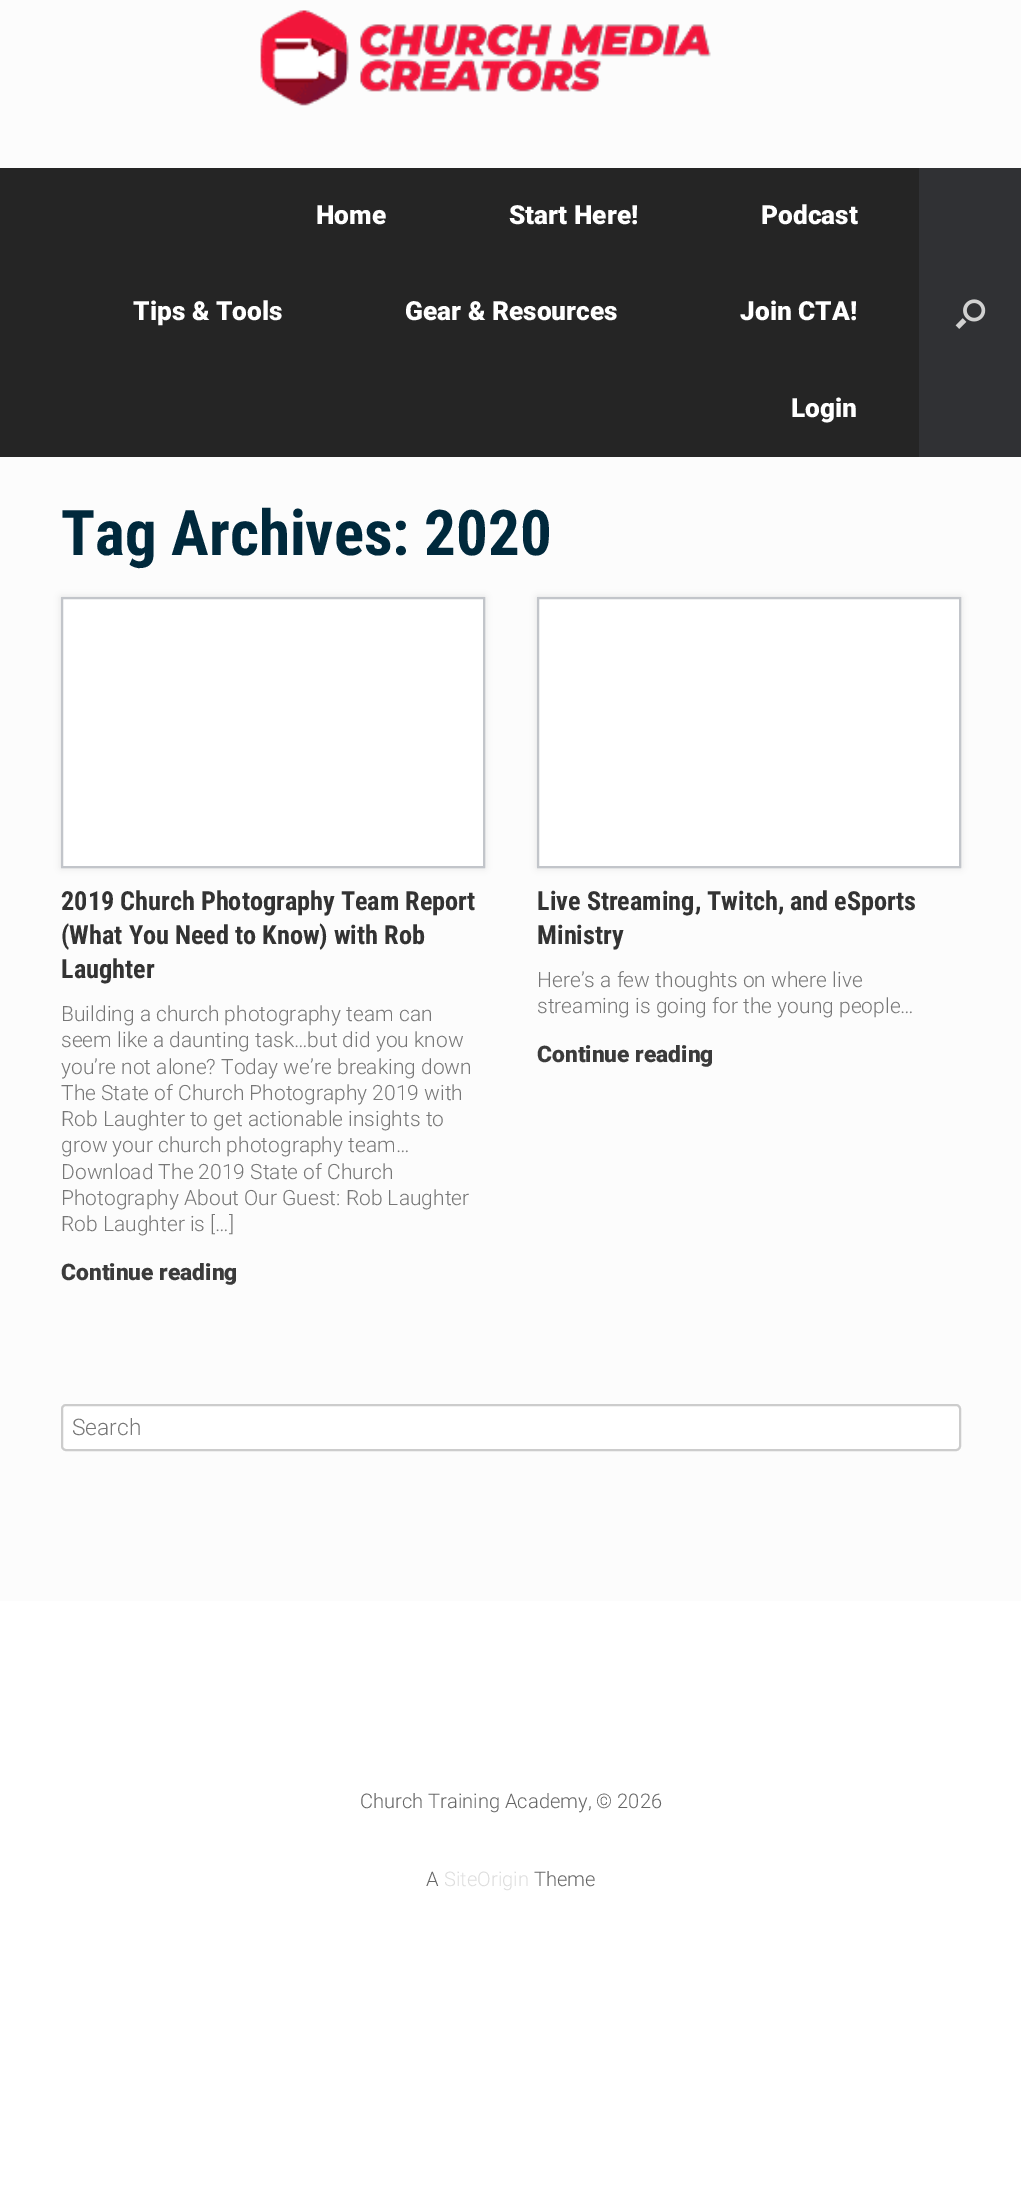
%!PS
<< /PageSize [1021 2210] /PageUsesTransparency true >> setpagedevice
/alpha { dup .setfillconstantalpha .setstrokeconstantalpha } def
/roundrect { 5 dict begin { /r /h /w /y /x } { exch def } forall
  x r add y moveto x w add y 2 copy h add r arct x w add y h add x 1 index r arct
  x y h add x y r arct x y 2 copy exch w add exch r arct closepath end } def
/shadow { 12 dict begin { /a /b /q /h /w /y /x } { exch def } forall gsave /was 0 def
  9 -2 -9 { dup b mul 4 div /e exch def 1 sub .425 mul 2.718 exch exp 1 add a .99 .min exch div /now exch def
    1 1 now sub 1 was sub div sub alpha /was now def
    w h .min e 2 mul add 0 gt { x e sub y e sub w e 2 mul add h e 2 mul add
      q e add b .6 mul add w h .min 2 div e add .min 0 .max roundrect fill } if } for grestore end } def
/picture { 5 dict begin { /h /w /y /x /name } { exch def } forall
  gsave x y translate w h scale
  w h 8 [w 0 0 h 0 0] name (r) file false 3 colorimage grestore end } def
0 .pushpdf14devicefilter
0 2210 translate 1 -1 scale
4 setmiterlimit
1 setgray
0 0 1021 2210 rectfill
0.988 setgray
0 0 1021 168 rectfill
(img1.rgb) 260 10 451 96 picture
0.145 setgray
0 168 919 289 rectfill
/Roboto-Black [26.25 0 0 -26.25 0 0] selectfont
1 setgray
316 224 moveto (Home) show
509 224 moveto (Start Here!) show
761 224 moveto (Podcast) show
133 320 moveto (Tips & Tools) show
405 320 moveto (Gear & Resources) show
740 320 moveto (Join CTA!) show
791 417 moveto (Login) show
0.188 0.192 0.204 setrgbcolor
919 168 102 289 rectfill
(img2.rgb) 955 299 31 30 picture
0.988 setgray
0 457 1021 1144 rectfill
/RobotoCondensed-Bold [63 0 0 -63 0 0] selectfont
0 0.161 0.235 setrgbcolor
61 555 moveto (Tag Archives: 2020) show
0 setgray
61 597 424 271 0 3.5 0.1 shadow
1 setgray
newpath 62 598 moveto 484 598 lineto 484 867 lineto 62 867 lineto closepath gsave fill grestore
0.761 0.773 0.792 setrgbcolor
2 setlinewidth
stroke
/RobotoCondensed-Bold [26.25 0 0 -26.25 0 0] selectfont
0.2 setgray
61 910 moveto (2019 Church Photography Team Report) show
61 944 moveto (\(What You Need to Know\) with Rob) show
61 978 moveto (Laughter) show
/Roboto-Light [21 0 0 -21 0 0] selectfont
0.467 setgray
61 1021 moveto (Building a church photography team can) show
61 1047 moveto (seem like a daunting task…but did you know) show
61 1074 moveto (you’re not alone? Today we’re breaking down) show
61 1100 moveto (The State of Church Photography 2019 with) show
61 1126 moveto (Rob Laughter to get actionable insights to) show
61 1152 moveto (grow your church photography team…) show
61 1179 moveto (Download The 2019 State of Church) show
61 1205 moveto (Photography About Our Guest: Rob Laughter) show
61 1231 moveto (Rob Laughter is […]) show
/Roboto-Black [22.75 0 0 -22.75 0 0] selectfont
0.231 setgray
61 1280 moveto (Continue reading) show
0 setgray
537 597 424 271 0 3.5 0.1 shadow
1 setgray
newpath 538 598 moveto 960 598 lineto 960 867 lineto 538 867 lineto closepath gsave fill grestore
0.761 0.773 0.792 setrgbcolor
stroke
/RobotoCondensed-Bold [26.25 0 0 -26.25 0 0] selectfont
0.2 setgray
537 910 moveto (Live Streaming, Twitch, and eSports) show
537 944 moveto (Ministry) show
/Roboto-Light [21 0 0 -21 0 0] selectfont
0.467 setgray
537 987 moveto (Here’s a few thoughts on where live) show
537 1013 moveto (streaming is going for the young people…) show
/Roboto-Black [22.75 0 0 -22.75 0 0] selectfont
0.231 setgray
537 1062 moveto (Continue reading) show
1 setgray
62 1405 898 45 4 roundrect gsave fill grestore
0.8 setgray
stroke
/Roboto-Light [22.75 0 0 -22.75 0 0] selectfont
0.467 setgray
72 1435 moveto (Search) show
/Roboto-Light [20.1 0 0 -20.1 0 0] selectfont
0.4 setgray
360 1808 moveto (Church Training Academy, © 2026) show
426 1886 moveto (A) show
0.867 setgray
444 1886 moveto (SiteOrigin) show
0.4 setgray
534 1886 moveto (Theme) show
.poppdf14devicefilter showpage
